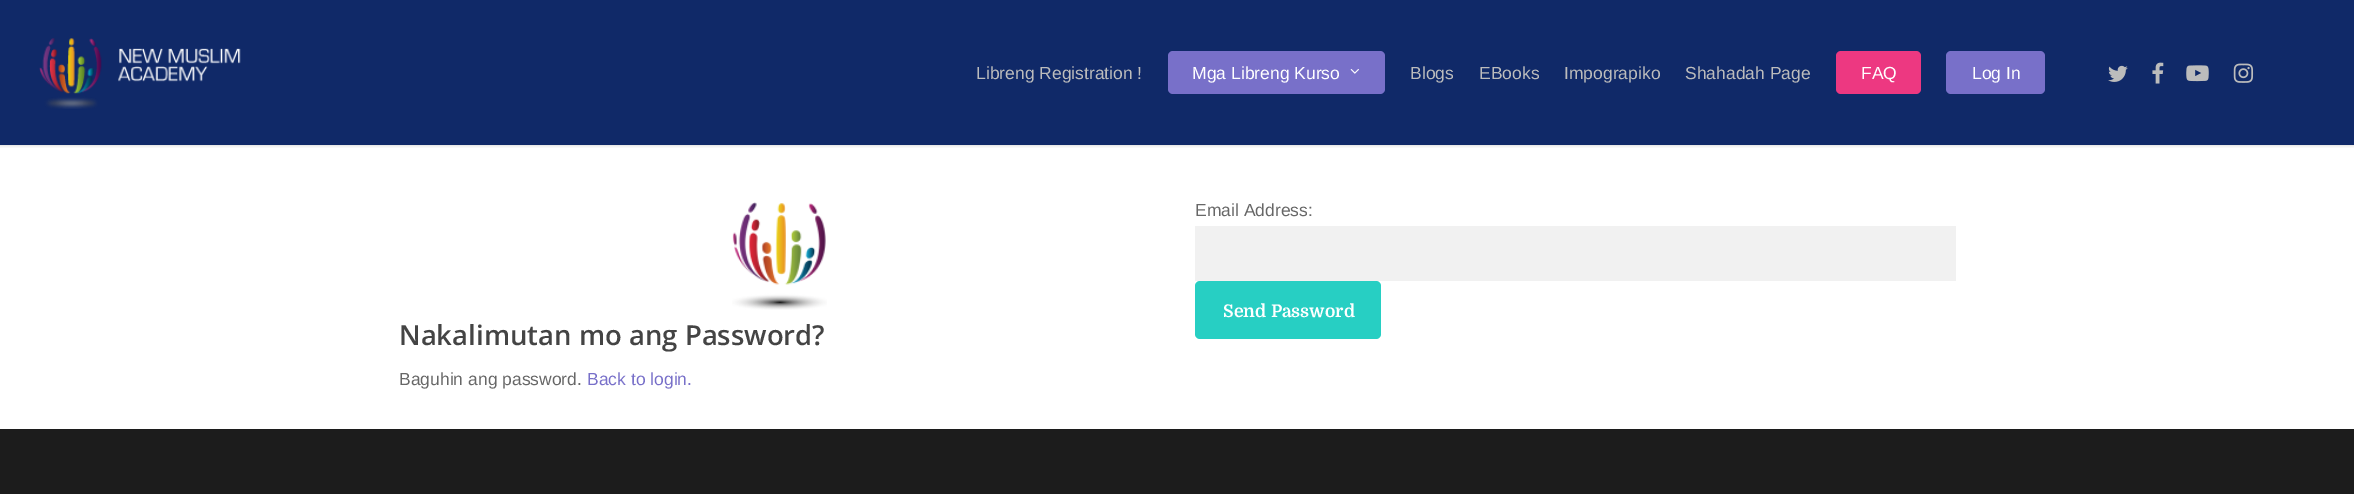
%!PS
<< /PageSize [2354 494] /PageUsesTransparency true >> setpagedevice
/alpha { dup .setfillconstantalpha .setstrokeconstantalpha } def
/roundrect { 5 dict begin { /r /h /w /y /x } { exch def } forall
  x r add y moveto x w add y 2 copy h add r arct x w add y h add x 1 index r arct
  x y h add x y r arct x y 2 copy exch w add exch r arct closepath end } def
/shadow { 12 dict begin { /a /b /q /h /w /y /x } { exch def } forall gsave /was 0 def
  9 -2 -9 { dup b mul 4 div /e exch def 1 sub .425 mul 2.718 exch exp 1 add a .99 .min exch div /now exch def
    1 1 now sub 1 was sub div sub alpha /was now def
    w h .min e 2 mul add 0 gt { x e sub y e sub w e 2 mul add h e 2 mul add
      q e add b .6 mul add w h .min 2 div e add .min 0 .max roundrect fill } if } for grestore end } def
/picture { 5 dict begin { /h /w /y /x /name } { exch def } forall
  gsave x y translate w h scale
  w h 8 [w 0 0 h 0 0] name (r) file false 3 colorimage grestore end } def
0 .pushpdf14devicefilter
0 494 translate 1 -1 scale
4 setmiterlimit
1 setgray
0 0 2354 494 rectfill
0.063 0.161 0.408 setrgbcolor
0 0 2354 145 rectfill
gsave
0 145 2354 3 rectclip
0 setgray
0 0 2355 145 0 2 0.22 shadow
grestore
(img1.rgb) 39 38 202 71 picture
/LiberationSans-Regular [17.5 0 0 -17.5 0 0] selectfont
0.737 setgray
976 79 moveto (Libreng Registration !) show
0.471 0.439 0.788 setrgbcolor
1168 51 217 43 5 roundrect fill
1 setgray
1192 79 moveto (Mga Libreng Kurso) show
(img2.rgb) 1350 69 9 5 picture
0.737 setgray
1410 79 moveto (Blogs) show
1479 79 moveto (EBooks) show
1564 79 moveto (Impograpiko) show
1685 79 moveto (Shahadah Page) show
0.929 0.22 0.506 setrgbcolor
1836 51 85 43 5 roundrect fill
1 setgray
1861 79 moveto (FAQ) show
0.471 0.439 0.788 setrgbcolor
1946 51 99 43 5 roundrect fill
1 setgray
1972 79 moveto (Log In) show
(img3.rgb) 2108 65 20 17 picture
(img4.rgb) 2152 62 12 22 picture
(img5.rgb) 2186 65 23 17 picture
(img6.rgb) 2233 63 21 20 picture
0.404 setgray
1195 216 moveto (Email Address:) show
0.945 setgray
1195 226 761 55 rectfill
0.153 0.812 0.765 setrgbcolor
1195 281 186 58 5 roundrect fill
/Domine-Bold [17.5 0 0 -17.5 0 0] selectfont
1 setgray
1223 317 moveto (Send Password) show
(img7.rgb) 732 202 95 108 picture
/OpenSans-SemiBold [27.5 0 0 -27.5 0 0] selectfont
0.267 setgray
399 345 moveto (Nakalimutan mo ang Password?) show
/LiberationSans-Regular [17.5 0 0 -17.5 0 0] selectfont
0.404 setgray
399 385 moveto (Baguhin ang password.) show
0.471 0.439 0.788 setrgbcolor
587 385 moveto (Back to login.) show
0.11 setgray
0 429 2354 65 rectfill
.poppdf14devicefilter showpage
